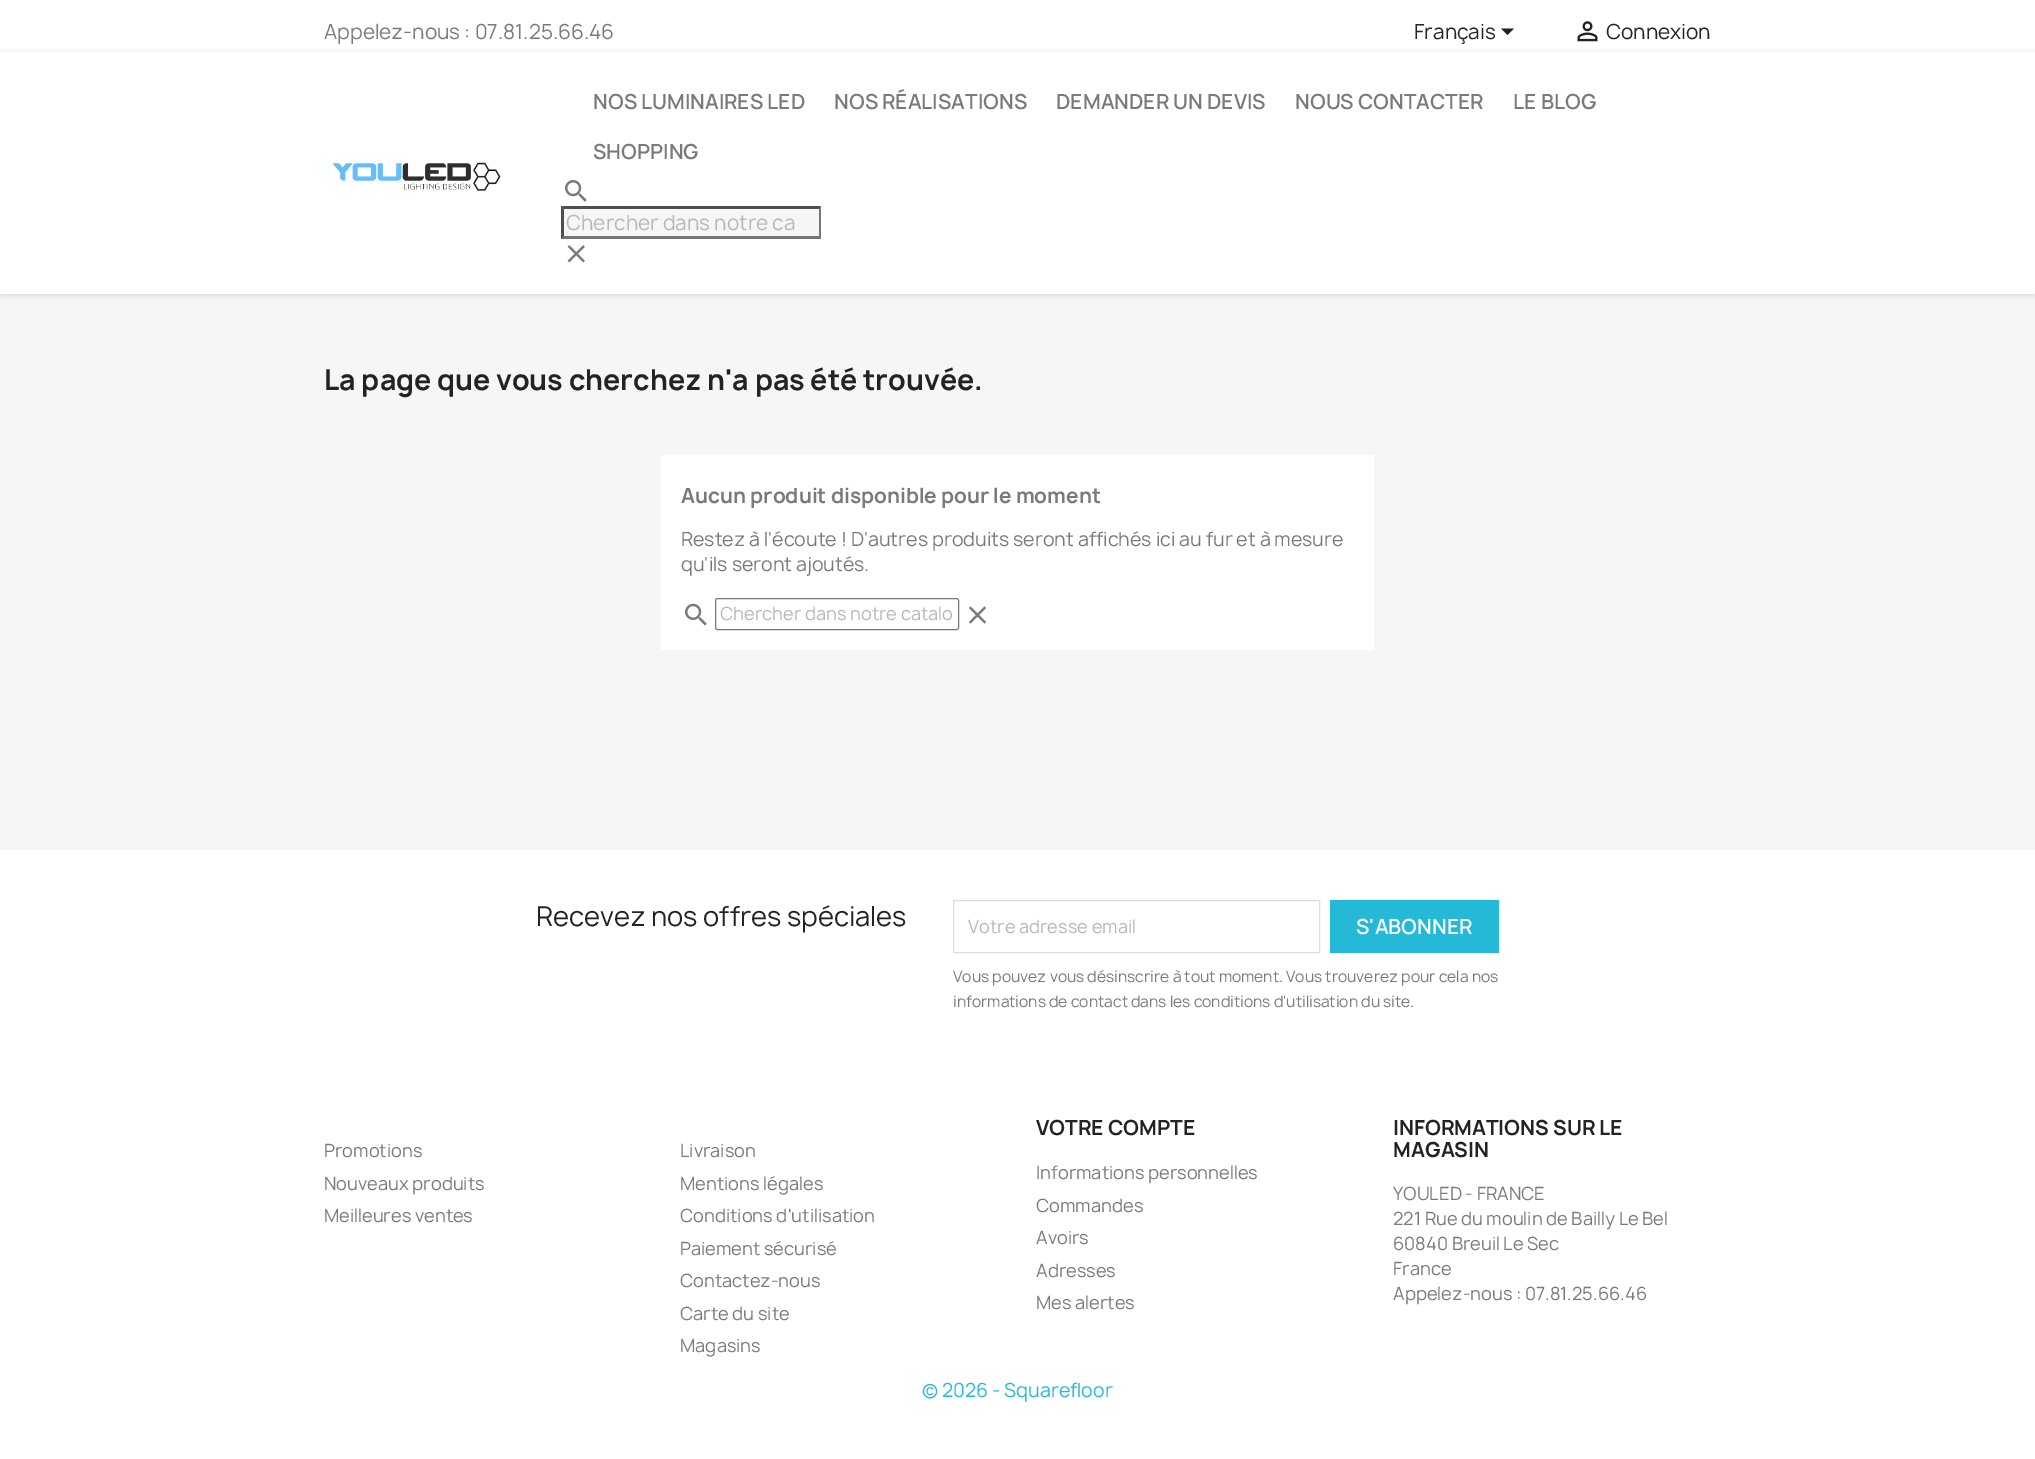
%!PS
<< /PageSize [2035 1459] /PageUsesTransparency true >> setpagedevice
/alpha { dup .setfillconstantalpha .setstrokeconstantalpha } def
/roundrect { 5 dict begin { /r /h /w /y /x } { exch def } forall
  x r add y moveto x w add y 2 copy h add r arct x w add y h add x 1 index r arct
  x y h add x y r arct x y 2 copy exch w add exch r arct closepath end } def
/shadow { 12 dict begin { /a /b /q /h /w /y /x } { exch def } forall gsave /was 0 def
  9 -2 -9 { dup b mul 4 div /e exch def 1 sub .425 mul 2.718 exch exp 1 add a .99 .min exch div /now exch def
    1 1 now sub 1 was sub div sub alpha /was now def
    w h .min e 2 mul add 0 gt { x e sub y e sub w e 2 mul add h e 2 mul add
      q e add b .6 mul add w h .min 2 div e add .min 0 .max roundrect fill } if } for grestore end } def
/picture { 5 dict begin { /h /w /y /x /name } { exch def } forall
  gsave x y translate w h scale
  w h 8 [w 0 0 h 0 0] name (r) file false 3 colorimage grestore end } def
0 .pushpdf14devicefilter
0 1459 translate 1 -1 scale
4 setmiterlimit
1 setgray
0 0 2035 1459 rectfill
0.965 setgray
0 294 2035 556 rectfill
0 setgray
0 3 2035 293 0 3 0.11 shadow
1 setgray
0 0 2035 294 rectfill
0.965 setgray
0 49 2035 3 rectfill
/Manrope-Regular [20 0 0 -20 0 0] selectfont
0.478 setgray
324 39 moveto (Appelez-nous : 07.81.25.66.46) show
0.137 setgray
1414 39 moveto (Français) show
newpath 1501 28.5 moveto 1514 28.5 lineto 1507.5 35 lineto closepath fill
(img1.rgb) 1577 21 21 21 picture
1606 39 moveto (Connexion) show
(img2.rgb) 332 162 169 29 picture
/Manrope-SemiBold [20 0 0 -20 0 0] selectfont
0.478 setgray
593 109 moveto (NOS LUMINAIRES LED) show
834 109 moveto (NOS RÉALISATIONS) show
1056 109 moveto (DEMANDER UN DEVIS) show
1295 109 moveto (NOUS CONTACTER) show
1513 109 moveto (LE BLOG) show
593 159 moveto (SHOPPING) show
(img3.rgb) 565 180 22 22 picture
0.965 setgray
561 206 260 33 rectfill
0.31 setgray
newpath 561 206 moveto 821 206 lineto 819 209 lineto 564 209 lineto closepath fill
0.463 setgray
newpath 821 206 moveto 821 239 lineto 819 236 lineto 819 209 lineto closepath fill
newpath 821 239 moveto 561 239 lineto 564 236 lineto 819 236 lineto closepath fill
0.31 setgray
newpath 561 239 moveto 561 206 lineto 564 209 lineto 564 236 lineto closepath fill
/Manrope-Regular [20 0 0 -20 0 0] selectfont
0.718 setgray
566 230 moveto (Chercher dans notre ca) show
(img4.rgb) 567 245 18 18 picture
/Manrope-Bold [27.5 0 0 -27.5 0 0] selectfont
0.137 setgray
324 390 moveto (La page que vous cherchez n'a pas été trouvée.) show
1 setgray
661 455 713 195 rectfill
/Manrope-Bold [20 0 0 -20 0 0] selectfont
0.478 setgray
681 503 moveto (Aucun produit disponible pour le moment) show
/Manrope-Regular [18.75 0 0 -18.75 0 0] selectfont
681 546 moveto (Restez à l'écoute ! D'autres produits seront affichés ici au fur et à mesure) show
681 571 moveto (qu'ils seront ajoutés.) show
(img5.rgb) 685 603 22 23 picture
0.463 setgray
715.5 598.5 243 31 2 roundrect stroke
/Manrope-Regular [17.5 0 0 -17.5 0 0] selectfont
0.718 setgray
720 620 moveto (Chercher dans notre catalo) show
(img6.rgb) 969 606 18 18 picture
/Manrope-Regular [26.25 0 0 -26.25 0 0] selectfont
0.137 setgray
536 926 moveto (Recevez nos offres spéciales) show
0.867 setgray
953.5 900.5 366 52 rectstroke
/Manrope-Regular [17.5 0 0 -17.5 0 0] selectfont
0.718 setgray
968 933 moveto (Votre adresse email) show
0.141 0.725 0.843 setrgbcolor
1330 900 169 53 rectfill
/Manrope-SemiBold [20 0 0 -20 0 0] selectfont
1 setgray
1356 934 moveto (S'ABONNER) show
/Manrope-Regular [15 0 0 -15 0 0] selectfont
0.478 setgray
953 982 moveto (Vous pouvez vous désinscrire à tout moment. Vous trouverez pour cela nos) show
953 1007 moveto (informations de contact dans les conditions d'utilisation du site.) show
/Manrope-Regular [17.5 0 0 -17.5 0 0] selectfont
324 1157 moveto (Promotions) show
324 1190 moveto (Nouveaux produits) show
324 1222 moveto (Meilleures ventes) show
680 1157 moveto (Livraison) show
680 1190 moveto (Mentions légales) show
680 1222 moveto (Conditions d'utilisation) show
680 1255 moveto (Paiement sécurisé) show
680 1287 moveto (Contactez-nous) show
680 1320 moveto (Carte du site) show
680 1352 moveto (Magasins) show
/Manrope-Bold [20 0 0 -20 0 0] selectfont
0.137 setgray
1036 1135 moveto (VOTRE COMPTE) show
/Manrope-Regular [17.5 0 0 -17.5 0 0] selectfont
0.478 setgray
1036 1179 moveto (Informations personnelles) show
1036 1212 moveto (Commandes) show
1036 1244 moveto (Avoirs) show
1036 1277 moveto (Adresses) show
1036 1309 moveto (Mes alertes) show
/Manrope-Bold [20 0 0 -20 0 0] selectfont
0.137 setgray
1393 1135 moveto (INFORMATIONS SUR LE) show
1393 1157 moveto (MAGASIN) show
/Manrope-Regular [17.5 0 0 -17.5 0 0] selectfont
0.478 setgray
1393 1200 moveto (YOULED - FRANCE) show
1393 1225 moveto (221 Rue du moulin de Bailly Le Bel) show
1393 1250 moveto (60840 Breuil Le Sec) show
1393 1275 moveto (France) show
1393 1300 moveto (Appelez-nous : 07.81.25.66.46) show
/Manrope-Regular [18.75 0 0 -18.75 0 0] selectfont
0.141 0.725 0.843 setrgbcolor
922 1397 moveto (© 2026 - Squarefloor) show
.poppdf14devicefilter showpage
